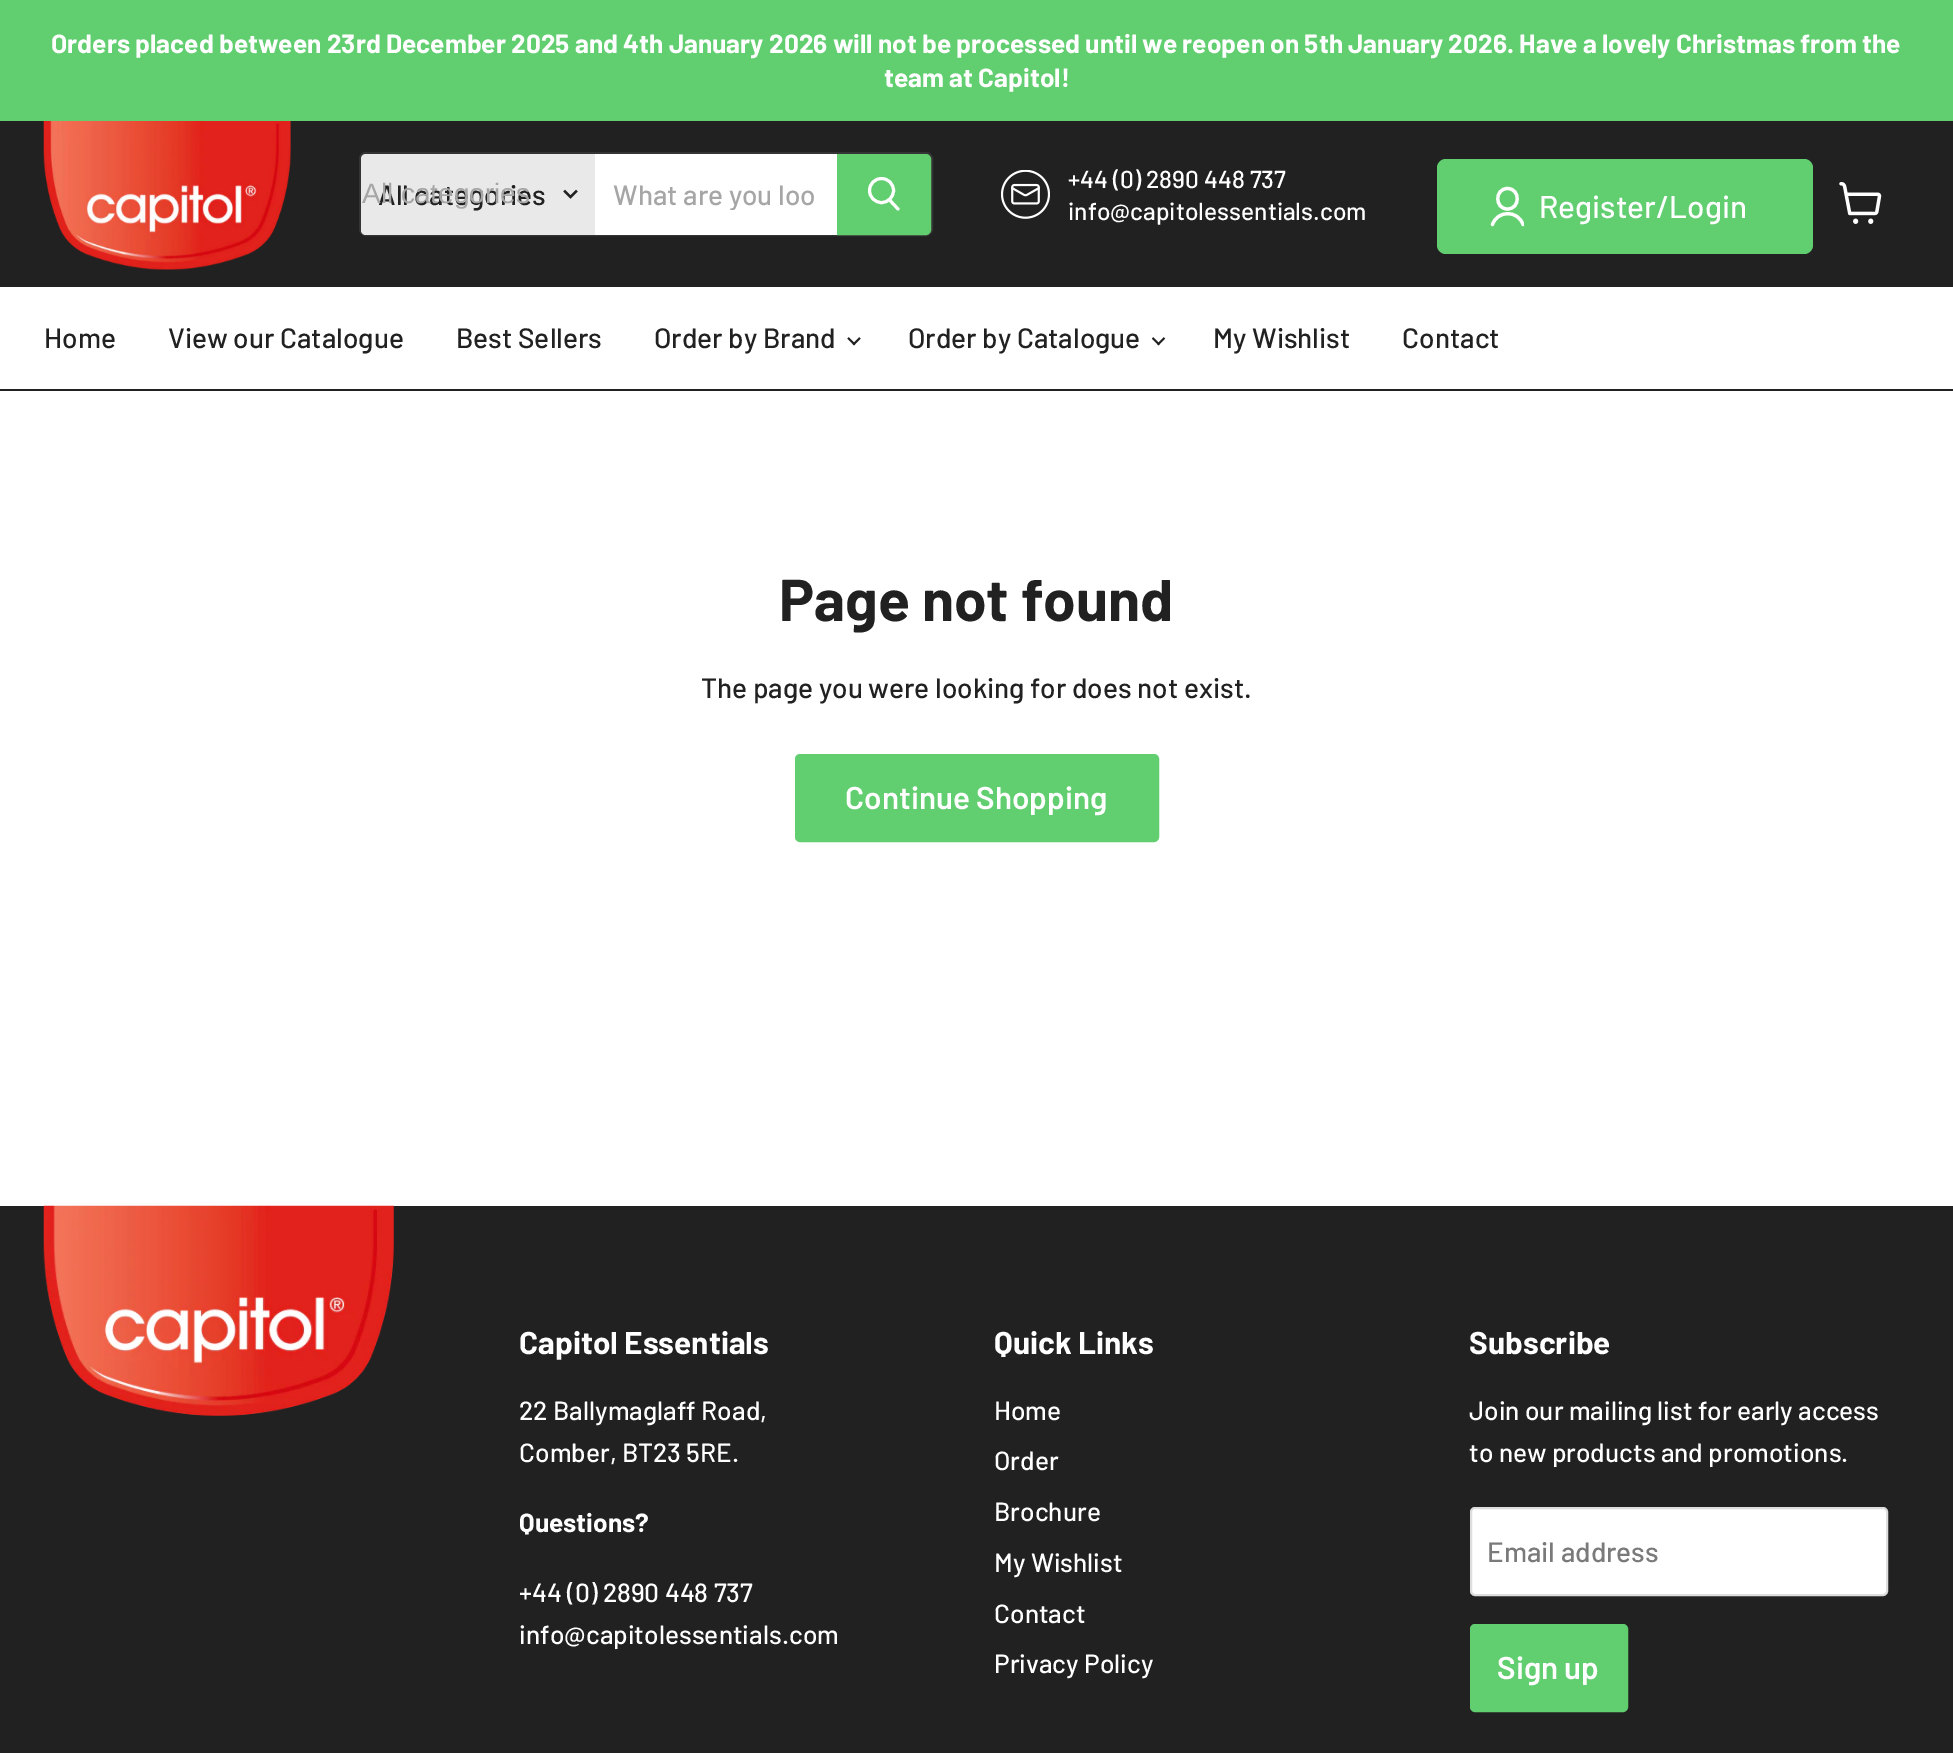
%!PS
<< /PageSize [1953 1753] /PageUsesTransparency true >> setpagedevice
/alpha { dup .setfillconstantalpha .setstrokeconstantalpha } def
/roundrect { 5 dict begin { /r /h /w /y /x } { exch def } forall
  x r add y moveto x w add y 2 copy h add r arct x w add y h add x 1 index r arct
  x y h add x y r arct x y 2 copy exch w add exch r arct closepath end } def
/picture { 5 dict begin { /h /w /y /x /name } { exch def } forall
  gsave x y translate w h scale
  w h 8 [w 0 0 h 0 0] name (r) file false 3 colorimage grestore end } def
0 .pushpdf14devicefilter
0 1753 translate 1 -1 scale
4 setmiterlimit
1 setgray
0 0 1953 1753 rectfill
0.38 0.808 0.439 setrgbcolor
0 0 1953 121 rectfill
/Barlow-Bold [26.25 0 0 -26.25 0 0] selectfont
1 setgray
51 53 moveto (Orders placed between 23rd December 2025 and 4th January 2026 will not be processed until we reopen on 5th January 2026. Have a lovely Christmas from the) show
884 87 moveto (team at Capitol!) show
0.129 setgray
0 121 1953 166 rectfill
(img1.rgb) 43 121 248 149 picture
0.2 alpha
0.502 setgray
2 setlinewidth
360 153 572 82 6 roundrect stroke
1 alpha
0.914 setgray
newpath 366 154 moveto 595 154 lineto 595 235 lineto 366 235 lineto 363 235 361 233 361 230 curveto 361 159 lineto 361 156 363 154 366 154 curveto closepath fill
/Barlow-Medium [28 0 0 -28 0 0] selectfont
0.129 setgray
378 205 moveto (All categories) show
/LiberationSans-Regular [28 0 0 -28 0 0] selectfont
0.651 setgray
362 203 moveto (All categories) show
0.129 setgray
2.2 setlinewidth
2 setlinecap
newpath 570.5 197 moveto 576 191.5 lineto 570.5 197 moveto 565 191.5 lineto stroke
1 setgray
595 154 242 81 rectfill
gsave
613 177 206 33 rectclip
/Barlow-Medium [28 0 0 -28 0 0] selectfont
0.651 setgray
613 205 moveto (What are you loo) show
grestore
0.38 0.808 0.439 setrgbcolor
newpath 838 155 moveto 926 155 lineto 928 155 930 157 930 159 curveto 930 230 lineto 930 232 928 234 926 234 curveto 838 234 lineto closepath gsave fill grestore
2 setlinewidth
0 setlinecap
stroke
1 setgray
3 setlinewidth
1 setlinecap
newpath 898 209 moveto 890 200.5 lineto stroke
0 setlinecap
newpath 881.5 190.5 12 0 360 arc closepath stroke
(img2.rgb) 1001 170 49 49 picture
/Barlow-Medium [24.5 0 0 -24.5 0 0] selectfont
1068 188 moveto (+44 \(0\) 2890 448 737) show
1068 220 moveto (info@capitolessentials.com) show
0.38 0.808 0.439 setrgbcolor
1437 159 376 95 9 roundrect fill
1 setgray
3.2 setlinewidth
1 setlinecap
1 setlinejoin
newpath 1507.5 209 moveto 1520.5 209 1520.5 188.5 1507.5 188.5 curveto 1494.5 188.5 1494.5 209 1507.5 209 curveto closepath stroke
gsave
1489 186 35 42 rectclip
newpath 1523 224.5 moveto 1518 210 1497.5 210 1492.5 224.5 curveto stroke
grestore
/Barlow-Medium [31.5 0 0 -31.5 0 0] selectfont
1539 218 moveto (Register/Login) show
(img3.rgb) 1839 182 43 42 picture
0.129 setgray
0 389 1953 2 rectfill
/Barlow-Medium [28 0 0 -28 0 0] selectfont
44 348 moveto (Home) show
168 348 moveto (View our Catalogue) show
456 348 moveto (Best Sellers) show
654 348 moveto (Order by Brand) show
(img4.rgb) 847 337 14 9 picture
908 348 moveto (Order by Catalogue) show
(img5.rgb) 1152 337 14 9 picture
1213 348 moveto (My Wishlist) show
1402 348 moveto (Contact) show
/Barlow-Bold [58.75 0 0 -58.75 0 0] selectfont
779 621 moveto (Page not found) show
/Barlow-Medium [28 0 0 -28 0 0] selectfont
701 698 moveto (The page you were looking for does not exist.) show
0.38 0.808 0.439 setrgbcolor
796 755 362 86 4 roundrect gsave fill grestore
2 setlinewidth
0 setlinecap
0 setlinejoin
stroke
/Barlow-SemiBold [31.5 0 0 -31.5 0 0] selectfont
1 setgray
845 809 moveto (Continue Shopping) show
0.129 setgray
0 1206 1953 547 rectfill
(img6.rgb) 43 1205 351 211 picture
/Barlow-Bold [31.5 0 0 -31.5 0 0] selectfont
1 setgray
519 1354 moveto (Capitol Essentials) show
/Barlow-Medium [26.25 0 0 -26.25 0 0] selectfont
519 1420 moveto (22 Ballymaglaff Road,) show
519 1462 moveto (Comber, BT23 5RE.) show
/Barlow-Bold [26.25 0 0 -26.25 0 0] selectfont
519 1532 moveto (Questions?) show
/Barlow-Medium [26.25 0 0 -26.25 0 0] selectfont
519 1602 moveto (+44 \(0\) 2890 448 737) show
519 1644 moveto (info@capitolessentials.com) show
/Barlow-Bold [31.5 0 0 -31.5 0 0] selectfont
994 1354 moveto (Quick Links) show
/Barlow-Medium [26.25 0 0 -26.25 0 0] selectfont
994 1420 moveto (Home) show
994 1470 moveto (Order) show
994 1521 moveto (Brochure) show
994 1572 moveto (My Wishlist) show
994 1623 moveto (Contact) show
994 1673 moveto (Privacy Policy) show
/Barlow-Bold [31.5 0 0 -31.5 0 0] selectfont
1469 1354 moveto (Subscribe) show
/Barlow-Medium [26.25 0 0 -26.25 0 0] selectfont
1469 1420 moveto (Join our mailing list for early access) show
1469 1462 moveto (to new products and promotions.) show
1471 1508 416 87 4 roundrect gsave fill grestore
0.867 setgray
stroke
/Barlow-Medium [28 0 0 -28 0 0] selectfont
0.478 setgray
1487 1562 moveto (Email address) show
0.38 0.808 0.439 setrgbcolor
1471 1625 156 86 4 roundrect gsave fill grestore
stroke
/Barlow-SemiBold [31.5 0 0 -31.5 0 0] selectfont
1 setgray
1497 1679 moveto (Sign up) show
.poppdf14devicefilter showpage
